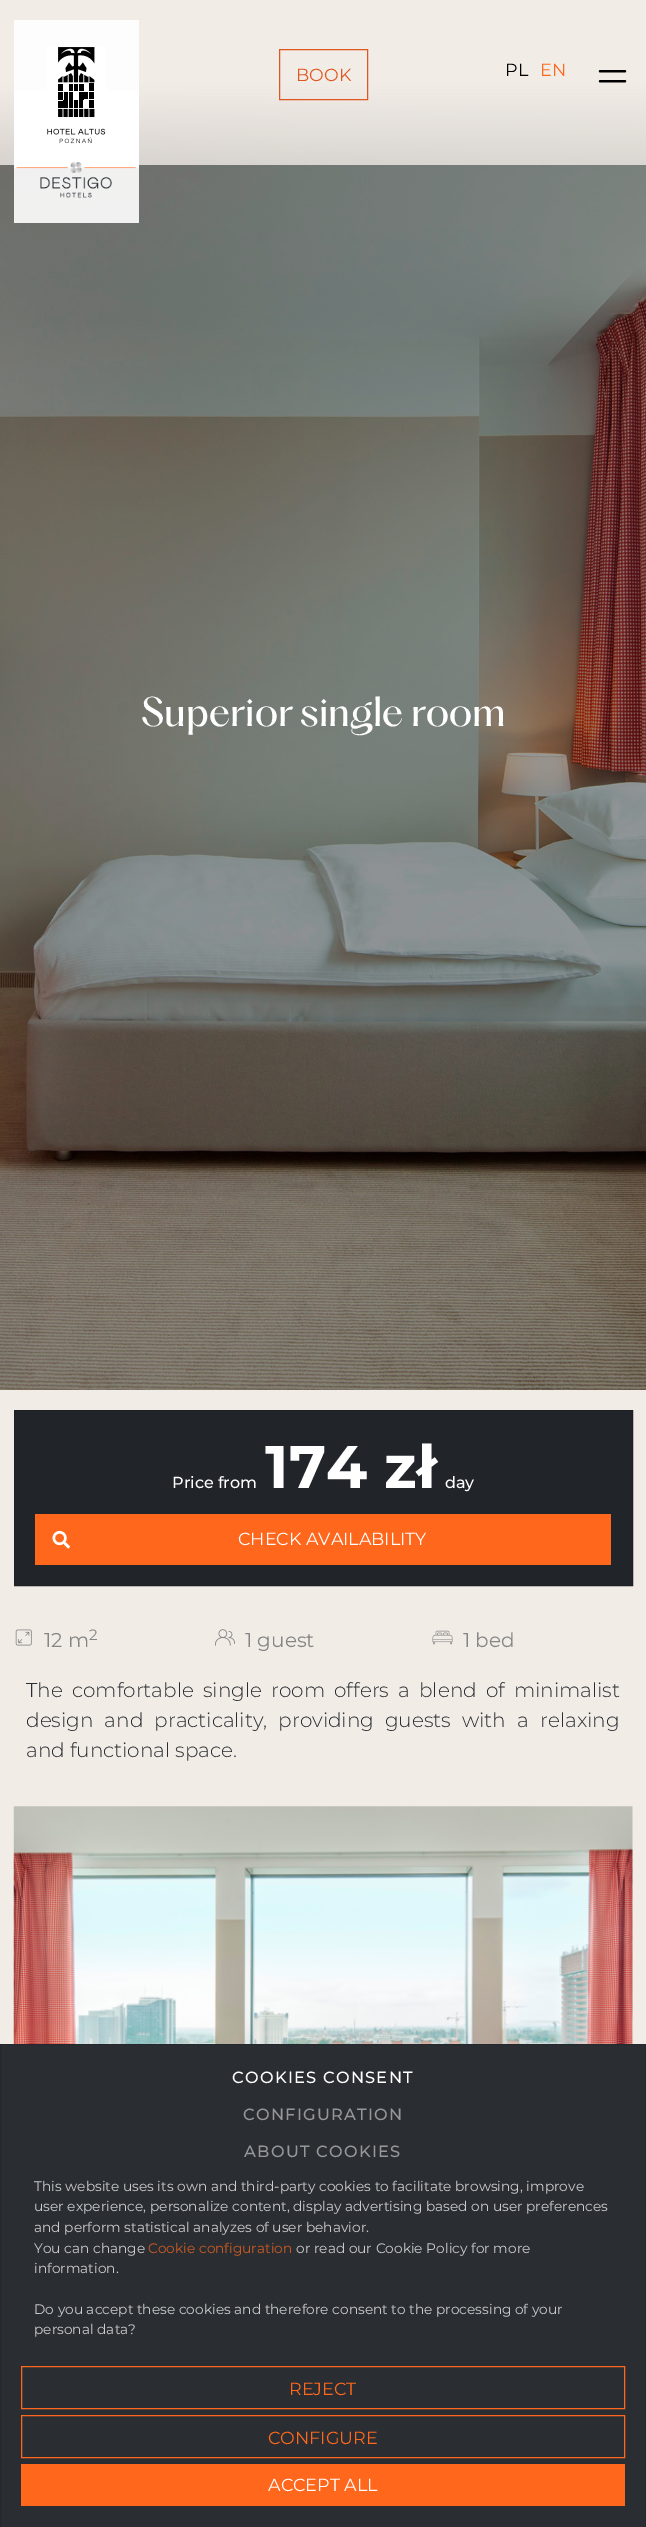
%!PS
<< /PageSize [646 2527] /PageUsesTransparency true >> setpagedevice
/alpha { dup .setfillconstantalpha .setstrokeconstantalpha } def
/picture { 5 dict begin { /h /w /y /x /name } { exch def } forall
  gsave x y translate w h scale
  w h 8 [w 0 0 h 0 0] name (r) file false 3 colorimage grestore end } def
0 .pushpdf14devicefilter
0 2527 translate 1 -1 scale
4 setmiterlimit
0.949 0.925 0.906 setrgbcolor
0 0 646 2527 rectfill
(img4.rgb) 0 0 646 1390 picture
0.9 alpha
1 setgray
14 20 125 203 rectfill
1 alpha
14 91 125 77 rectfill
(img1.rgb) 47 47 59 97 picture
(img2.rgb) 16 161 120 37 picture
(img3.rgb) 598 70 29 13 picture
0.875 0.341 0.125 setrgbcolor
279.5 49.5 88 50 rectstroke
/Montserrat-Regular [17.5 0 0 -17.5 0 0] selectfont
296 81 moveto (BOOK) show
0 setgray
505 76 moveto (PL) show
1 0.408 0.11 setrgbcolor
540 76 moveto (EN) show
/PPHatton-Regular [37.25 0 0 -37.25 0 0] selectfont
1 setgray
141 726 moveto (Superior single room) show
0.129 0.145 0.161 setrgbcolor
newpath 14.5 1410.5 moveto 632.5 1410.5 lineto 632.5 1585.5 lineto 14.5 1585.5 lineto closepath gsave fill grestore
0.114 0.125 0.141 setrgbcolor
stroke
/Montserrat-Medium [16 0 0 -16 0 0] selectfont
1 setgray
172 1488 moveto (Price from) show
/Montserrat-Bold [60 0 0 -60 0 0] selectfont
265 1488 moveto (174 zł) show
/Montserrat-Medium [16 0 0 -16 0 0] selectfont
445 1488 moveto (day) show
1 0.408 0.11 setrgbcolor
35 1514 576 51 rectfill
(img5.rgb) 52 1530 18 19 picture
/Montserrat-Regular [17.5 0 0 -17.5 0 0] selectfont
1 setgray
238 1545 moveto (CHECK AVAILABILITY) show
(img6.rgb) 15 1629 17 17 picture
/Montserrat-Regular [20 0 0 -20 0 0] selectfont
0.522 setgray
44 1647 moveto (12 m) show
/Montserrat-Regular [15 0 0 -15 0 0] selectfont
89 1640 moveto (2) show
(img7.rgb) 215 1629 20 17 picture
/Montserrat-Regular [20 0 0 -20 0 0] selectfont
245 1647 moveto (1 guest) show
(img8.rgb) 432 1630 21 15 picture
463 1647 moveto (1 bed) show
/Montserrat-Light [20 0 0 -20 0 0] selectfont
0.165 0.18 0.2 setrgbcolor
26 1697 moveto 4 0 32 (The comfortable single room offers a blend of minimalist) widthshow
26 1727 moveto 6 0 32 (design and practicality, providing guests with a relaxing) widthshow
26 1757 moveto (and functional space.) show
(img9.rgb) 13 1806 620 238 picture
newpath 0.5 2044.5 moveto 645.5 2044.5 lineto 645.5 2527.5 lineto 0.5 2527.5 lineto closepath gsave fill grestore
0.145 0.157 0.176 setrgbcolor
stroke
/Montserrat-Medium [16.25 0 0 -16.25 0 0] selectfont
1 setgray
232 2083 moveto 1.25 0 (COOKIES CONSENT) ashow
0.584 0.592 0.6 setrgbcolor
243 2120 moveto 1.25 0 (CONFIGURATION) ashow
244 2157 moveto 1.25 0 (ABOUT COOKIES) ashow
/Montserrat-Regular [13.75 0 0 -13.75 0 0] selectfont
0.792 0.796 0.8 setrgbcolor
34 2191 moveto (This website uses its own and third-party cookies to facilitate browsing, improve) show
34 2211 moveto (user experience, personalize content, display advertising based on user preferences) show
34 2232 moveto (and perform statistical analyzes of user behavior.) show
34 2253 moveto (You can change) show
0.792 0.353 0.133 setrgbcolor
148 2253 moveto (Cookie configuration) show
0.792 0.796 0.8 setrgbcolor
296 2253 moveto (or read our Cookie Policy for more) show
34 2273 moveto (information.) show
34 2314 moveto (Do you accept these cookies and therefore consent to the processing of your) show
34 2334 moveto (personal data?) show
1 0.408 0.11 setrgbcolor
21.5 2366.5 603 42 rectstroke
/Montserrat-Regular [17.5 0 0 -17.5 0 0] selectfont
289 2395 moveto (REJECT) show
21.5 2415.5 603 42 rectstroke
268 2444 moveto (CONFIGURE) show
21 2464 604 42 rectfill
1 setgray
268 2491 moveto (ACCEPT ALL) show
.poppdf14devicefilter showpage
